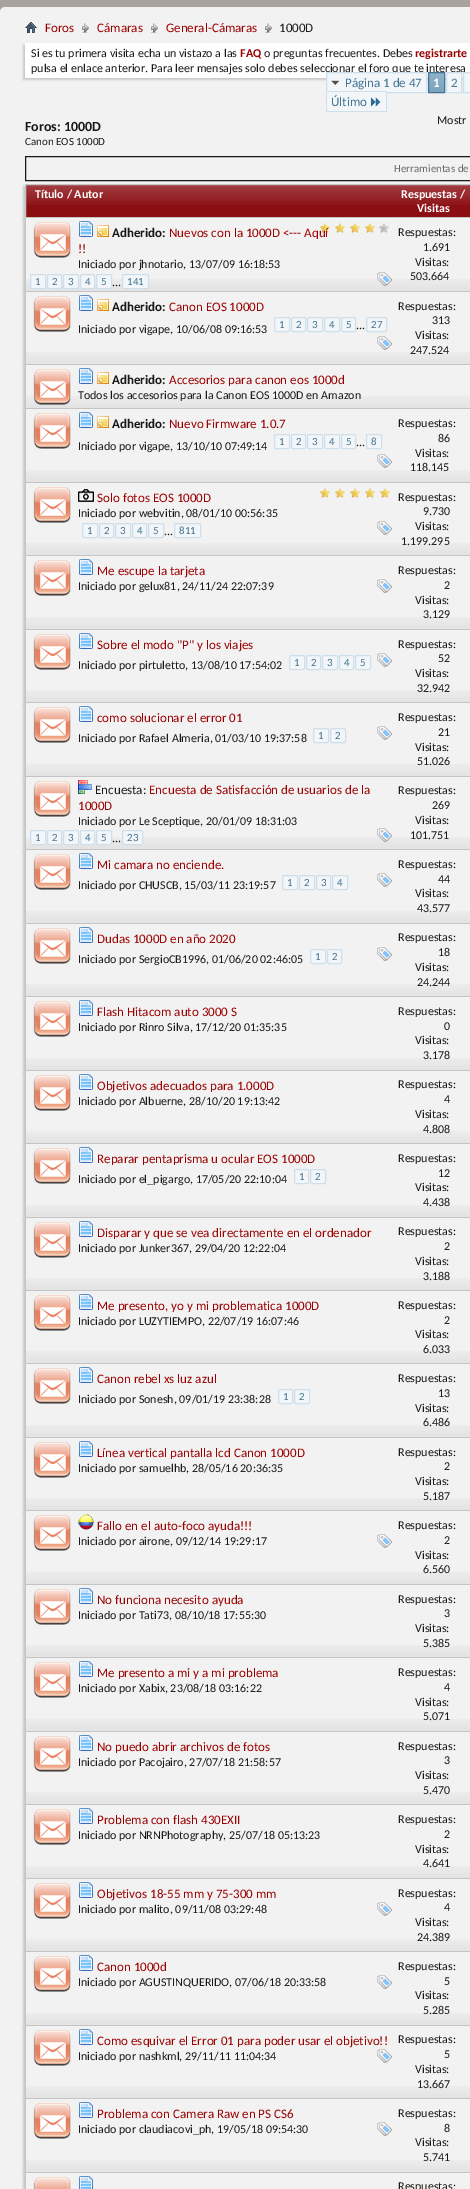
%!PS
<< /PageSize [470 2189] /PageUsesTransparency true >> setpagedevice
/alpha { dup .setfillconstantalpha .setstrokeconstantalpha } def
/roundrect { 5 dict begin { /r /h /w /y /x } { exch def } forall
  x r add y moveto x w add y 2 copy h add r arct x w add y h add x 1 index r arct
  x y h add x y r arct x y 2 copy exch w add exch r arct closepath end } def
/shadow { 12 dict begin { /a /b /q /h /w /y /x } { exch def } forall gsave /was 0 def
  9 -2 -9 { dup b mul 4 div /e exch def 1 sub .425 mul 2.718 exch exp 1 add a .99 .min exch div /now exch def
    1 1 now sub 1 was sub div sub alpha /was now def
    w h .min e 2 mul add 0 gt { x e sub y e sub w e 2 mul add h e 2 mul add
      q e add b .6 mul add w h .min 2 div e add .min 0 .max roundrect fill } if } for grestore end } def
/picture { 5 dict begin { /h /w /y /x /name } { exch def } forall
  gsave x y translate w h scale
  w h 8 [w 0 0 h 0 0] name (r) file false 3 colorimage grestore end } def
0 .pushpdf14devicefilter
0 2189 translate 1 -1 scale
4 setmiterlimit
0.659 0.639 0.616 setrgbcolor
0 0 470 2189 rectfill
0.949 setgray
0 7 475 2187 5 roundrect fill
(img1.rgb) 25 22 12 11 picture
(img2.rgb) 82 23 7 10 picture
/Carlito-Regular [13 0 0 -13 0 0] selectfont
0.604 0 0 setrgbcolor
45 32 moveto (Foros) show
(img2.rgb) 151 23 7 10 picture
97 32 moveto (Cámaras) show
(img2.rgb) 265 23 7 10 picture
166 32 moveto (General-Cámaras) show
0.102 0.098 0.09 setrgbcolor
279 32 moveto (1000D) show
0.784 setgray
23 45 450 35 0 1 1 shadow
1 setgray
25 43 445 35 rectfill
/Carlito-Regular [12 0 0 -12 0 0] selectfont
0.102 0.098 0.09 setrgbcolor
31 57 moveto (Si es tu primera visita echa un vistazo a las) show
/Carlito-Bold [12 0 0 -12 0 0] selectfont
0.604 0 0 setrgbcolor
240 57 moveto (FAQ) show
/Carlito-Regular [12 0 0 -12 0 0] selectfont
0.102 0.098 0.09 setrgbcolor
264 57 moveto (o preguntas frecuentes. Debes) show
/Carlito-Bold [12 0 0 -12 0 0] selectfont
0.604 0 0 setrgbcolor
415 57 moveto (registrarte) show
/Carlito-Regular [12 0 0 -12 0 0] selectfont
0.102 0.098 0.09 setrgbcolor
31 72 moveto (pulsa el enlace anterior. Para leer mensajes solo debes seleccionar el foro que te interesa) show
0.949 0.965 0.973 setrgbcolor
327 73 99 19 rectfill
(img3.rgb) 331 80 9 6 picture
0.808 0.875 0.922 setrgbcolor
326.5 72.5 100 20 rectstroke
/Carlito-Regular [13 0 0 -13 0 0] selectfont
0.255 0.451 0.58 setrgbcolor
345 87 moveto (Página 1 de 47) show
0.459 0.624 0.733 setrgbcolor
429 73 15 19 rectfill
(img4.rgb) 429 73 15 19 picture
0.255 0.451 0.58 setrgbcolor
428.5 72.5 16 20 rectstroke
/Carlito-Bold [13 0 0 -13 0 0] selectfont
1 setgray
433 87 moveto (1) show
0.949 0.965 0.973 setrgbcolor
newpath 446.5 72.5 moveto 461.5 72.5 lineto 461.5 92.5 lineto 446.5 92.5 lineto closepath gsave fill grestore
0.808 0.875 0.922 setrgbcolor
stroke
/Carlito-Regular [13 0 0 -13 0 0] selectfont
0.255 0.451 0.58 setrgbcolor
451 87 moveto (2) show
0.949 0.965 0.973 setrgbcolor
newpath 463.5 72.5 moveto 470.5 72.5 lineto 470.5 92.5 lineto 463.5 92.5 lineto closepath gsave fill grestore
0.808 0.875 0.922 setrgbcolor
stroke
0.949 0.965 0.973 setrgbcolor
327 92 59 19 rectfill
0.255 0.451 0.58 setrgbcolor
331 106 moveto (Último) show
0.808 0.875 0.922 setrgbcolor
326 91 61 1 rectfill
326 111 41 1 rectfill
326 91 1 21 rectfill
386 91 1 21 rectfill
367 111 20 1 rectfill
(img5.rgb) 371 97 10 10 picture
/Carlito-Regular [12 0 0 -12 0 0] selectfont
0.102 0.098 0.09 setrgbcolor
437 124 moveto (Mostr) show
/Carlito-Bold [14 0 0 -14 0 0] selectfont
25 131 moveto (Foros: 1000D) show
/Carlito-Regular [11 0 0 -11 0 0] selectfont
25 145 moveto (Canon EOS 1000D) show
25.5 156.5 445 24 rectstroke
0.4 setgray
394 172 moveto (Herramientas de) show
0.784 setgray
23 186 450 34 0 1 1 shadow
0.545 0.055 0.071 setrgbcolor
26 185 444 32 rectfill
(img6.rgb) 26 185 444 20 picture
0.769 setgray
25.5 184.5 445 33 rectstroke
/Carlito-Bold [12 0 0 -12 0 0] selectfont
1 setgray
35 198 moveto (Título / Autor) show
401 198 moveto (Respuestas /) show
417 212 moveto (Visitas) show
0.784 setgray
23 220 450 74 0 1 1 shadow
0.949 setgray
26 218 444 73 rectfill
(img7.rgb) 26 279 372 12 picture
0.769 setgray
25 291 445 1 rectfill
25 218 1 74 rectfill
(img8.rgb) 33 222 38 36 picture
(img9.rgb) 320 223 69 10 picture
(img10.rgb) 79 221 14 16 picture
(img11.rgb) 97 225 12 12 picture
/Carlito-Bold [13 0 0 -13 0 0] selectfont
0.102 0.098 0.09 setrgbcolor
112 237 moveto (Adherido:) show
/Carlito-Regular [13 0 0 -13 0 0] selectfont
0.604 0 0 setrgbcolor
169 237 moveto (Nuevos con la 1000D <--- Aquí) show
78 253 moveto (!!) show
/Carlito-Regular [12 0 0 -12 0 0] selectfont
0.102 0.098 0.09 setrgbcolor
78 268 moveto (Iniciado por jhnotario, 13/07/09 16:18:53) show
0.949 0.965 0.973 setrgbcolor
30.5 274.5 15 14 1.5 roundrect gsave fill grestore
0.808 0.875 0.922 setrgbcolor
stroke
/Carlito-Regular [11 0 0 -11 0 0] selectfont
0.255 0.451 0.58 setrgbcolor
35 285 moveto (1) show
0.949 0.965 0.973 setrgbcolor
47.5 274.5 14 14 1.5 roundrect gsave fill grestore
0.808 0.875 0.922 setrgbcolor
stroke
0.255 0.451 0.58 setrgbcolor
52 285 moveto (2) show
0.949 0.965 0.973 setrgbcolor
63.5 274.5 15 14 1.5 roundrect gsave fill grestore
0.808 0.875 0.922 setrgbcolor
stroke
0.255 0.451 0.58 setrgbcolor
68 285 moveto (3) show
0.949 0.965 0.973 setrgbcolor
80.5 274.5 14 14 1.5 roundrect gsave fill grestore
0.808 0.875 0.922 setrgbcolor
stroke
0.255 0.451 0.58 setrgbcolor
85 285 moveto (4) show
0.949 0.965 0.973 setrgbcolor
96.5 274.5 15 14 1.5 roundrect gsave fill grestore
0.808 0.875 0.922 setrgbcolor
stroke
0.255 0.451 0.58 setrgbcolor
101 285 moveto (5) show
0.949 0.965 0.973 setrgbcolor
122.5 274.5 26 14 1.5 roundrect gsave fill grestore
0.808 0.875 0.922 setrgbcolor
stroke
0.255 0.451 0.58 setrgbcolor
127 285 moveto (141) show
/Carlito-Regular [12 0 0 -12 0 0] selectfont
0.102 0.098 0.09 setrgbcolor
112 286 moveto (...) show
(img12.rgb) 377 272 15 14 picture
(img13.rgb) 398 279 72 12 picture
398 236 moveto (Respuestas:) show
423 251 moveto (1.691) show
415 266 moveto (Visitas:) show
410 280 moveto (503.664) show
0.784 setgray
23 294 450 73 0 1 1 shadow
0.949 setgray
26 292 444 72 rectfill
(img7.rgb) 26 352 372 12 picture
0.769 setgray
25 364 445 1 rectfill
25 292 1 73 rectfill
(img8.rgb) 33 296 38 36 picture
(img10.rgb) 79 295 14 16 picture
(img11.rgb) 97 299 12 12 picture
/Carlito-Bold [13 0 0 -13 0 0] selectfont
0.102 0.098 0.09 setrgbcolor
112 311 moveto (Adherido:) show
/Carlito-Regular [13 0 0 -13 0 0] selectfont
0.604 0 0 setrgbcolor
169 311 moveto (Canon EOS 1000D) show
/Carlito-Regular [12 0 0 -12 0 0] selectfont
0.102 0.098 0.09 setrgbcolor
78 333 moveto (Iniciado por vigape, 10/06/08 09:16:53) show
0.949 0.965 0.973 setrgbcolor
274.5 317.5 15 14 1.5 roundrect gsave fill grestore
0.808 0.875 0.922 setrgbcolor
stroke
/Carlito-Regular [11 0 0 -11 0 0] selectfont
0.255 0.451 0.58 setrgbcolor
279 328 moveto (1) show
0.949 0.965 0.973 setrgbcolor
291.5 317.5 14 14 1.5 roundrect gsave fill grestore
0.808 0.875 0.922 setrgbcolor
stroke
0.255 0.451 0.58 setrgbcolor
296 328 moveto (2) show
0.949 0.965 0.973 setrgbcolor
307.5 317.5 15 14 1.5 roundrect gsave fill grestore
0.808 0.875 0.922 setrgbcolor
stroke
0.255 0.451 0.58 setrgbcolor
312 328 moveto (3) show
0.949 0.965 0.973 setrgbcolor
324.5 317.5 15 14 1.5 roundrect gsave fill grestore
0.808 0.875 0.922 setrgbcolor
stroke
0.255 0.451 0.58 setrgbcolor
329 328 moveto (4) show
0.949 0.965 0.973 setrgbcolor
341.5 317.5 14 14 1.5 roundrect gsave fill grestore
0.808 0.875 0.922 setrgbcolor
stroke
0.255 0.451 0.58 setrgbcolor
346 328 moveto (5) show
0.949 0.965 0.973 setrgbcolor
366.5 317.5 20 14 1.5 roundrect gsave fill grestore
0.808 0.875 0.922 setrgbcolor
stroke
0.255 0.451 0.58 setrgbcolor
371 328 moveto (27) show
/Carlito-Regular [12 0 0 -12 0 0] selectfont
0.102 0.098 0.09 setrgbcolor
356 329 moveto (...) show
(img14.rgb) 377 336 15 14 picture
(img13.rgb) 398 352 72 12 picture
398 310 moveto (Respuestas:) show
432 324 moveto (313) show
415 339 moveto (Visitas:) show
410 354 moveto (247.524) show
0.784 setgray
23 367 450 44 0 1 1 shadow
0.949 setgray
26 365 444 43 rectfill
(img7.rgb) 26 396 372 12 picture
0.769 setgray
25 408 445 1 rectfill
25 365 1 44 rectfill
(img15.rgb) 33 369 38 36 picture
(img10.rgb) 79 368 14 16 picture
(img11.rgb) 97 372 12 12 picture
/Carlito-Bold [13 0 0 -13 0 0] selectfont
0.102 0.098 0.09 setrgbcolor
112 384 moveto (Adherido:) show
/Carlito-Regular [13 0 0 -13 0 0] selectfont
0.604 0 0 setrgbcolor
169 384 moveto (Accesorios para canon eos 1000d) show
/Carlito-Regular [12 0 0 -12 0 0] selectfont
0.102 0.098 0.09 setrgbcolor
78 399 moveto (Todos los accesorios para la Canon EOS 1000D en Amazon) show
(img13.rgb) 398 396 72 12 picture
0.784 setgray
23 411 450 74 0 1 1 shadow
0.949 setgray
26 409 444 73 rectfill
(img7.rgb) 26 470 372 12 picture
0.769 setgray
25 482 445 1 rectfill
25 409 1 74 rectfill
(img8.rgb) 33 413 38 36 picture
(img10.rgb) 79 412 14 16 picture
(img11.rgb) 97 416 12 12 picture
/Carlito-Bold [13 0 0 -13 0 0] selectfont
0.102 0.098 0.09 setrgbcolor
112 428 moveto (Adherido:) show
/Carlito-Regular [13 0 0 -13 0 0] selectfont
0.604 0 0 setrgbcolor
169 428 moveto (Nuevo Firmware 1.0.7) show
/Carlito-Regular [12 0 0 -12 0 0] selectfont
0.102 0.098 0.09 setrgbcolor
78 450 moveto (Iniciado por vigape, 13/10/10 07:49:14) show
0.949 0.965 0.973 setrgbcolor
274.5 434.5 15 14 1.5 roundrect gsave fill grestore
0.808 0.875 0.922 setrgbcolor
stroke
/Carlito-Regular [11 0 0 -11 0 0] selectfont
0.255 0.451 0.58 setrgbcolor
279 445 moveto (1) show
0.949 0.965 0.973 setrgbcolor
291.5 434.5 14 14 1.5 roundrect gsave fill grestore
0.808 0.875 0.922 setrgbcolor
stroke
0.255 0.451 0.58 setrgbcolor
296 445 moveto (2) show
0.949 0.965 0.973 setrgbcolor
307.5 434.5 15 14 1.5 roundrect gsave fill grestore
0.808 0.875 0.922 setrgbcolor
stroke
0.255 0.451 0.58 setrgbcolor
312 445 moveto (3) show
0.949 0.965 0.973 setrgbcolor
324.5 434.5 15 14 1.5 roundrect gsave fill grestore
0.808 0.875 0.922 setrgbcolor
stroke
0.255 0.451 0.58 setrgbcolor
329 445 moveto (4) show
0.949 0.965 0.973 setrgbcolor
341.5 434.5 14 14 1.5 roundrect gsave fill grestore
0.808 0.875 0.922 setrgbcolor
stroke
0.255 0.451 0.58 setrgbcolor
346 445 moveto (5) show
/Carlito-Regular [12 0 0 -12 0 0] selectfont
0.102 0.098 0.09 setrgbcolor
356 446 moveto (...) show
0.949 0.965 0.973 setrgbcolor
366.5 434.5 15 14 1.5 roundrect gsave fill grestore
0.808 0.875 0.922 setrgbcolor
stroke
/Carlito-Regular [11 0 0 -11 0 0] selectfont
0.255 0.451 0.58 setrgbcolor
371 445 moveto (8) show
(img14.rgb) 377 454 15 14 picture
(img13.rgb) 398 470 72 12 picture
/Carlito-Regular [12 0 0 -12 0 0] selectfont
0.102 0.098 0.09 setrgbcolor
398 427 moveto (Respuestas:) show
438 442 moveto (86) show
415 457 moveto (Visitas:) show
410 471 moveto (118.145) show
0.784 setgray
23 485 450 73 0 1 1 shadow
0.949 setgray
26 483 444 72 rectfill
(img7.rgb) 26 543 372 12 picture
0.769 setgray
25 555 445 1 rectfill
25 483 1 73 rectfill
(img8.rgb) 33 487 38 36 picture
(img16.rgb) 320 488 70 10 picture
(img17.rgb) 78 489 16 13 picture
/Carlito-Regular [13 0 0 -13 0 0] selectfont
0.604 0 0 setrgbcolor
97 502 moveto (Solo fotos EOS 1000D) show
/Carlito-Regular [12 0 0 -12 0 0] selectfont
0.102 0.098 0.09 setrgbcolor
78 517 moveto (Iniciado por webvitin, 08/01/10 00:56:35) show
0.949 0.965 0.973 setrgbcolor
82.5 523.5 15 14 1.5 roundrect gsave fill grestore
0.808 0.875 0.922 setrgbcolor
stroke
/Carlito-Regular [11 0 0 -11 0 0] selectfont
0.255 0.451 0.58 setrgbcolor
87 534 moveto (1) show
0.949 0.965 0.973 setrgbcolor
99.5 523.5 14 14 1.5 roundrect gsave fill grestore
0.808 0.875 0.922 setrgbcolor
stroke
0.255 0.451 0.58 setrgbcolor
104 534 moveto (2) show
0.949 0.965 0.973 setrgbcolor
115.5 523.5 15 14 1.5 roundrect gsave fill grestore
0.808 0.875 0.922 setrgbcolor
stroke
0.255 0.451 0.58 setrgbcolor
120 534 moveto (3) show
0.949 0.965 0.973 setrgbcolor
132.5 523.5 14 14 1.5 roundrect gsave fill grestore
0.808 0.875 0.922 setrgbcolor
stroke
0.255 0.451 0.58 setrgbcolor
137 534 moveto (4) show
0.949 0.965 0.973 setrgbcolor
148.5 523.5 15 14 1.5 roundrect gsave fill grestore
0.808 0.875 0.922 setrgbcolor
stroke
0.255 0.451 0.58 setrgbcolor
153 534 moveto (5) show
/Carlito-Regular [12 0 0 -12 0 0] selectfont
0.102 0.098 0.09 setrgbcolor
164 535 moveto (...) show
0.949 0.965 0.973 setrgbcolor
174.5 523.5 26 14 1.5 roundrect gsave fill grestore
0.808 0.875 0.922 setrgbcolor
stroke
/Carlito-Regular [11 0 0 -11 0 0] selectfont
0.255 0.451 0.58 setrgbcolor
179 534 moveto (811) show
(img14.rgb) 377 521 15 14 picture
(img13.rgb) 398 543 72 12 picture
/Carlito-Regular [12 0 0 -12 0 0] selectfont
0.102 0.098 0.09 setrgbcolor
398 501 moveto (Respuestas:) show
423 515 moveto (9.730) show
415 530 moveto (Visitas:) show
401 545 moveto (1.199.295) show
0.784 setgray
23 558 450 74 0 1 1 shadow
0.949 setgray
26 556 444 73 rectfill
(img7.rgb) 26 617 372 12 picture
0.769 setgray
25 629 445 1 rectfill
25 556 1 74 rectfill
(img8.rgb) 33 560 38 36 picture
(img10.rgb) 79 559 14 16 picture
/Carlito-Regular [13 0 0 -13 0 0] selectfont
0.604 0 0 setrgbcolor
97 575 moveto (Me escupe la tarjeta) show
/Carlito-Regular [12 0 0 -12 0 0] selectfont
0.102 0.098 0.09 setrgbcolor
78 590 moveto (Iniciado por gelux81, 24/11/24 22:07:39) show
(img14.rgb) 377 579 15 14 picture
(img13.rgb) 398 617 72 12 picture
398 574 moveto (Respuestas:) show
444 589 moveto (2) show
415 604 moveto (Visitas:) show
423 618 moveto (3.129) show
0.784 setgray
23 632 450 73 0 1 1 shadow
0.949 setgray
26 630 444 72 rectfill
(img7.rgb) 26 690 372 12 picture
0.769 setgray
25 702 445 1 rectfill
25 630 1 73 rectfill
(img8.rgb) 33 634 38 36 picture
(img10.rgb) 79 633 14 16 picture
/Carlito-Regular [13 0 0 -13 0 0] selectfont
0.604 0 0 setrgbcolor
97 649 moveto (Sobre el modo "P" y los viajes) show
/Carlito-Regular [12 0 0 -12 0 0] selectfont
0.102 0.098 0.09 setrgbcolor
78 669 moveto (Iniciado por pirtuletto, 13/08/10 17:54:02) show
0.949 0.965 0.973 setrgbcolor
289.5 655.5 15 14 1.5 roundrect gsave fill grestore
0.808 0.875 0.922 setrgbcolor
stroke
/Carlito-Regular [11 0 0 -11 0 0] selectfont
0.255 0.451 0.58 setrgbcolor
294 666 moveto (1) show
0.949 0.965 0.973 setrgbcolor
306.5 655.5 14 14 1.5 roundrect gsave fill grestore
0.808 0.875 0.922 setrgbcolor
stroke
0.255 0.451 0.58 setrgbcolor
311 666 moveto (2) show
0.949 0.965 0.973 setrgbcolor
322.5 655.5 15 14 1.5 roundrect gsave fill grestore
0.808 0.875 0.922 setrgbcolor
stroke
0.255 0.451 0.58 setrgbcolor
327 666 moveto (3) show
0.949 0.965 0.973 setrgbcolor
339.5 655.5 14 14 1.5 roundrect gsave fill grestore
0.808 0.875 0.922 setrgbcolor
stroke
0.255 0.451 0.58 setrgbcolor
344 666 moveto (4) show
0.949 0.965 0.973 setrgbcolor
355.5 655.5 15 14 1.5 roundrect gsave fill grestore
0.808 0.875 0.922 setrgbcolor
stroke
0.255 0.451 0.58 setrgbcolor
360 666 moveto (5) show
(img14.rgb) 377 653 15 14 picture
(img13.rgb) 398 690 72 12 picture
/Carlito-Regular [12 0 0 -12 0 0] selectfont
0.102 0.098 0.09 setrgbcolor
398 648 moveto (Respuestas:) show
438 662 moveto (52) show
415 677 moveto (Visitas:) show
417 692 moveto (32.942) show
0.784 setgray
23 705 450 74 0 1 1 shadow
0.949 setgray
26 703 444 73 rectfill
(img7.rgb) 26 764 372 12 picture
0.769 setgray
25 776 445 1 rectfill
25 703 1 74 rectfill
(img8.rgb) 33 707 38 36 picture
(img10.rgb) 79 706 14 16 picture
/Carlito-Regular [13 0 0 -13 0 0] selectfont
0.604 0 0 setrgbcolor
97 722 moveto (como solucionar el error 01) show
/Carlito-Regular [12 0 0 -12 0 0] selectfont
0.102 0.098 0.09 setrgbcolor
78 742 moveto (Iniciado por Rafael Almeria, 01/03/10 19:37:58) show
0.949 0.965 0.973 setrgbcolor
313.5 728.5 15 14 1.5 roundrect gsave fill grestore
0.808 0.875 0.922 setrgbcolor
stroke
/Carlito-Regular [11 0 0 -11 0 0] selectfont
0.255 0.451 0.58 setrgbcolor
318 739 moveto (1) show
0.949 0.965 0.973 setrgbcolor
330.5 728.5 15 14 1.5 roundrect gsave fill grestore
0.808 0.875 0.922 setrgbcolor
stroke
0.255 0.451 0.58 setrgbcolor
335 739 moveto (2) show
(img14.rgb) 377 726 15 14 picture
(img13.rgb) 398 764 72 12 picture
/Carlito-Regular [12 0 0 -12 0 0] selectfont
0.102 0.098 0.09 setrgbcolor
398 721 moveto (Respuestas:) show
438 736 moveto (21) show
415 751 moveto (Visitas:) show
417 765 moveto (51.026) show
0.784 setgray
23 779 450 73 0 1 1 shadow
0.949 setgray
26 777 444 72 rectfill
(img7.rgb) 26 837 372 12 picture
0.769 setgray
25 849 445 1 rectfill
25 777 1 73 rectfill
(img8.rgb) 33 781 38 36 picture
(img18.rgb) 78 780 14 14 picture
/Carlito-Regular [13 0 0 -13 0 0] selectfont
0.102 0.098 0.09 setrgbcolor
95 794 moveto (Encuesta:) show
0.604 0 0 setrgbcolor
149 794 moveto (Encuesta de Satisfacción de usuarios de la) show
78 810 moveto (1000D) show
/Carlito-Regular [12 0 0 -12 0 0] selectfont
0.102 0.098 0.09 setrgbcolor
78 825 moveto (Iniciado por Le Sceptique, 20/01/09 18:31:03) show
0.949 0.965 0.973 setrgbcolor
30.5 830.5 15 14 1.5 roundrect gsave fill grestore
0.808 0.875 0.922 setrgbcolor
stroke
/Carlito-Regular [11 0 0 -11 0 0] selectfont
0.255 0.451 0.58 setrgbcolor
35 841 moveto (1) show
0.949 0.965 0.973 setrgbcolor
47.5 830.5 14 14 1.5 roundrect gsave fill grestore
0.808 0.875 0.922 setrgbcolor
stroke
0.255 0.451 0.58 setrgbcolor
52 841 moveto (2) show
0.949 0.965 0.973 setrgbcolor
63.5 830.5 15 14 1.5 roundrect gsave fill grestore
0.808 0.875 0.922 setrgbcolor
stroke
0.255 0.451 0.58 setrgbcolor
68 841 moveto (3) show
0.949 0.965 0.973 setrgbcolor
80.5 830.5 14 14 1.5 roundrect gsave fill grestore
0.808 0.875 0.922 setrgbcolor
stroke
0.255 0.451 0.58 setrgbcolor
85 841 moveto (4) show
0.949 0.965 0.973 setrgbcolor
96.5 830.5 15 14 1.5 roundrect gsave fill grestore
0.808 0.875 0.922 setrgbcolor
stroke
0.255 0.451 0.58 setrgbcolor
101 841 moveto (5) show
/Carlito-Regular [12 0 0 -12 0 0] selectfont
0.102 0.098 0.09 setrgbcolor
112 842 moveto (...) show
0.949 0.965 0.973 setrgbcolor
122.5 830.5 20 14 1.5 roundrect gsave fill grestore
0.808 0.875 0.922 setrgbcolor
stroke
/Carlito-Regular [11 0 0 -11 0 0] selectfont
0.255 0.451 0.58 setrgbcolor
127 841 moveto (23) show
(img19.rgb) 377 828 15 14 picture
(img13.rgb) 398 837 72 12 picture
/Carlito-Regular [12 0 0 -12 0 0] selectfont
0.102 0.098 0.09 setrgbcolor
398 794 moveto (Respuestas:) show
432 809 moveto (269) show
415 824 moveto (Visitas:) show
410 839 moveto (101.751) show
0.784 setgray
23 852 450 74 0 1 1 shadow
0.949 setgray
26 850 444 73 rectfill
(img7.rgb) 26 911 372 12 picture
0.769 setgray
25 923 445 1 rectfill
25 850 1 74 rectfill
(img8.rgb) 33 854 38 36 picture
(img10.rgb) 79 853 14 16 picture
/Carlito-Regular [13 0 0 -13 0 0] selectfont
0.604 0 0 setrgbcolor
97 869 moveto (Mi camara no enciende.) show
/Carlito-Regular [12 0 0 -12 0 0] selectfont
0.102 0.098 0.09 setrgbcolor
78 889 moveto (Iniciado por CHUSCB, 15/03/11 23:19:57) show
0.949 0.965 0.973 setrgbcolor
282.5 875.5 15 14 1.5 roundrect gsave fill grestore
0.808 0.875 0.922 setrgbcolor
stroke
/Carlito-Regular [11 0 0 -11 0 0] selectfont
0.255 0.451 0.58 setrgbcolor
287 886 moveto (1) show
0.949 0.965 0.973 setrgbcolor
299.5 875.5 15 14 1.5 roundrect gsave fill grestore
0.808 0.875 0.922 setrgbcolor
stroke
0.255 0.451 0.58 setrgbcolor
304 886 moveto (2) show
0.949 0.965 0.973 setrgbcolor
316.5 875.5 14 14 1.5 roundrect gsave fill grestore
0.808 0.875 0.922 setrgbcolor
stroke
0.255 0.451 0.58 setrgbcolor
321 886 moveto (3) show
0.949 0.965 0.973 setrgbcolor
332.5 875.5 15 14 1.5 roundrect gsave fill grestore
0.808 0.875 0.922 setrgbcolor
stroke
0.255 0.451 0.58 setrgbcolor
337 886 moveto (4) show
(img14.rgb) 377 873 15 14 picture
(img13.rgb) 398 911 72 12 picture
/Carlito-Regular [12 0 0 -12 0 0] selectfont
0.102 0.098 0.09 setrgbcolor
398 868 moveto (Respuestas:) show
438 883 moveto (44) show
415 897 moveto (Visitas:) show
417 912 moveto (43.577) show
0.784 setgray
23 926 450 73 0 1 1 shadow
0.949 setgray
26 924 444 72 rectfill
(img7.rgb) 26 984 372 12 picture
0.769 setgray
25 996 445 1 rectfill
25 924 1 73 rectfill
(img8.rgb) 33 928 38 36 picture
(img10.rgb) 79 927 14 16 picture
/Carlito-Regular [13 0 0 -13 0 0] selectfont
0.604 0 0 setrgbcolor
97 943 moveto (Dudas 1000D en año 2020) show
/Carlito-Regular [12 0 0 -12 0 0] selectfont
0.102 0.098 0.09 setrgbcolor
78 963 moveto (Iniciado por SergioCB1996, 01/06/20 02:46:05) show
0.949 0.965 0.973 setrgbcolor
310.5 949.5 15 14 1.5 roundrect gsave fill grestore
0.808 0.875 0.922 setrgbcolor
stroke
/Carlito-Regular [11 0 0 -11 0 0] selectfont
0.255 0.451 0.58 setrgbcolor
315 960 moveto (1) show
0.949 0.965 0.973 setrgbcolor
327.5 949.5 14 14 1.5 roundrect gsave fill grestore
0.808 0.875 0.922 setrgbcolor
stroke
0.255 0.451 0.58 setrgbcolor
332 960 moveto (2) show
(img14.rgb) 377 947 15 14 picture
(img13.rgb) 398 984 72 12 picture
/Carlito-Regular [12 0 0 -12 0 0] selectfont
0.102 0.098 0.09 setrgbcolor
398 941 moveto (Respuestas:) show
438 956 moveto (18) show
415 971 moveto (Visitas:) show
417 986 moveto (24.244) show
0.784 setgray
23 999 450 74 0 1 1 shadow
0.949 setgray
26 997 444 73 rectfill
(img7.rgb) 26 1058 372 12 picture
0.769 setgray
25 1070 445 1 rectfill
25 997 1 74 rectfill
(img8.rgb) 33 1001 38 36 picture
(img10.rgb) 79 1000 14 16 picture
/Carlito-Regular [13 0 0 -13 0 0] selectfont
0.604 0 0 setrgbcolor
97 1016 moveto (Flash Hitacom auto 3000 S) show
/Carlito-Regular [12 0 0 -12 0 0] selectfont
0.102 0.098 0.09 setrgbcolor
78 1031 moveto (Iniciado por Rinro Silva, 17/12/20 01:35:35) show
(img13.rgb) 398 1058 72 12 picture
398 1015 moveto (Respuestas:) show
444 1030 moveto (0) show
415 1044 moveto (Visitas:) show
423 1059 moveto (3.178) show
0.784 setgray
23 1073 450 73 0 1 1 shadow
0.949 setgray
26 1071 444 72 rectfill
(img7.rgb) 26 1131 372 12 picture
0.769 setgray
25 1143 445 1 rectfill
25 1071 1 73 rectfill
(img8.rgb) 33 1075 38 36 picture
(img10.rgb) 79 1074 14 16 picture
/Carlito-Regular [13 0 0 -13 0 0] selectfont
0.604 0 0 setrgbcolor
97 1090 moveto (Objetivos adecuados para 1.000D) show
/Carlito-Regular [12 0 0 -12 0 0] selectfont
0.102 0.098 0.09 setrgbcolor
78 1105 moveto (Iniciado por Albuerne, 28/10/20 19:13:42) show
(img13.rgb) 398 1131 72 12 picture
398 1088 moveto (Respuestas:) show
444 1103 moveto (4) show
415 1118 moveto (Visitas:) show
423 1133 moveto (4.808) show
0.784 setgray
23 1146 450 74 0 1 1 shadow
0.949 setgray
26 1144 444 73 rectfill
(img7.rgb) 26 1205 372 12 picture
0.769 setgray
25 1217 445 1 rectfill
25 1144 1 74 rectfill
(img8.rgb) 33 1148 38 36 picture
(img10.rgb) 79 1147 14 16 picture
/Carlito-Regular [13 0 0 -13 0 0] selectfont
0.604 0 0 setrgbcolor
97 1163 moveto (Reparar pentaprisma u ocular EOS 1000D) show
/Carlito-Regular [12 0 0 -12 0 0] selectfont
0.102 0.098 0.09 setrgbcolor
78 1183 moveto (Iniciado por el_pigargo, 17/05/20 22:10:04) show
0.949 0.965 0.973 setrgbcolor
294.5 1169.5 14 14 1.5 roundrect gsave fill grestore
0.808 0.875 0.922 setrgbcolor
stroke
/Carlito-Regular [11 0 0 -11 0 0] selectfont
0.255 0.451 0.58 setrgbcolor
299 1180 moveto (1) show
0.949 0.965 0.973 setrgbcolor
310.5 1169.5 15 14 1.5 roundrect gsave fill grestore
0.808 0.875 0.922 setrgbcolor
stroke
0.255 0.451 0.58 setrgbcolor
315 1180 moveto (2) show
(img13.rgb) 398 1205 72 12 picture
/Carlito-Regular [12 0 0 -12 0 0] selectfont
0.102 0.098 0.09 setrgbcolor
398 1162 moveto (Respuestas:) show
438 1177 moveto (12) show
415 1191 moveto (Visitas:) show
423 1206 moveto (4.438) show
0.784 setgray
23 1220 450 73 0 1 1 shadow
0.949 setgray
26 1218 444 72 rectfill
(img7.rgb) 26 1278 372 12 picture
0.769 setgray
25 1290 445 1 rectfill
25 1218 1 73 rectfill
(img8.rgb) 33 1222 38 36 picture
(img10.rgb) 79 1221 14 16 picture
/Carlito-Regular [13 0 0 -13 0 0] selectfont
0.604 0 0 setrgbcolor
97 1237 moveto (Disparar y que se vea directamente en el ordenador) show
/Carlito-Regular [12 0 0 -12 0 0] selectfont
0.102 0.098 0.09 setrgbcolor
78 1252 moveto (Iniciado por Junker367, 29/04/20 12:22:04) show
(img13.rgb) 398 1278 72 12 picture
398 1235 moveto (Respuestas:) show
444 1250 moveto (2) show
415 1265 moveto (Visitas:) show
423 1280 moveto (3.188) show
0.784 setgray
23 1293 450 73 0 1 1 shadow
0.949 setgray
26 1291 444 72 rectfill
(img7.rgb) 26 1351 372 12 picture
0.769 setgray
25 1363 445 1 rectfill
25 1291 1 73 rectfill
(img8.rgb) 33 1295 38 36 picture
(img10.rgb) 79 1294 14 16 picture
/Carlito-Regular [13 0 0 -13 0 0] selectfont
0.604 0 0 setrgbcolor
97 1310 moveto (Me presento, yo y mi problematica 1000D) show
/Carlito-Regular [12 0 0 -12 0 0] selectfont
0.102 0.098 0.09 setrgbcolor
78 1325 moveto (Iniciado por LUZYTIEMPO, 22/07/19 16:07:46) show
(img13.rgb) 398 1351 72 12 picture
398 1309 moveto (Respuestas:) show
444 1324 moveto (2) show
415 1338 moveto (Visitas:) show
423 1353 moveto (6.033) show
0.784 setgray
23 1366 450 74 0 1 1 shadow
0.949 setgray
26 1364 444 73 rectfill
(img7.rgb) 26 1425 372 12 picture
0.769 setgray
25 1437 445 1 rectfill
25 1364 1 74 rectfill
(img8.rgb) 33 1368 38 36 picture
(img10.rgb) 79 1367 14 16 picture
/Carlito-Regular [13 0 0 -13 0 0] selectfont
0.604 0 0 setrgbcolor
97 1383 moveto (Canon rebel xs luz azul) show
/Carlito-Regular [12 0 0 -12 0 0] selectfont
0.102 0.098 0.09 setrgbcolor
78 1403 moveto (Iniciado por Sonesh, 09/01/19 23:38:28) show
0.949 0.965 0.973 setrgbcolor
278.5 1389.5 14 14 1.5 roundrect gsave fill grestore
0.808 0.875 0.922 setrgbcolor
stroke
/Carlito-Regular [11 0 0 -11 0 0] selectfont
0.255 0.451 0.58 setrgbcolor
283 1400 moveto (1) show
0.949 0.965 0.973 setrgbcolor
294.5 1389.5 15 14 1.5 roundrect gsave fill grestore
0.808 0.875 0.922 setrgbcolor
stroke
0.255 0.451 0.58 setrgbcolor
299 1400 moveto (2) show
(img13.rgb) 398 1425 72 12 picture
/Carlito-Regular [12 0 0 -12 0 0] selectfont
0.102 0.098 0.09 setrgbcolor
398 1382 moveto (Respuestas:) show
438 1397 moveto (13) show
415 1412 moveto (Visitas:) show
423 1426 moveto (6.486) show
0.784 setgray
23 1440 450 73 0 1 1 shadow
0.949 setgray
26 1438 444 72 rectfill
(img7.rgb) 26 1498 372 12 picture
0.769 setgray
25 1510 445 1 rectfill
25 1438 1 73 rectfill
(img8.rgb) 33 1442 38 36 picture
(img10.rgb) 79 1441 14 16 picture
/Carlito-Regular [13 0 0 -13 0 0] selectfont
0.604 0 0 setrgbcolor
97 1457 moveto (Línea vertical pantalla lcd Canon 1000D) show
/Carlito-Regular [12 0 0 -12 0 0] selectfont
0.102 0.098 0.09 setrgbcolor
78 1472 moveto (Iniciado por samuelhb, 28/05/16 20:36:35) show
(img13.rgb) 398 1498 72 12 picture
398 1456 moveto (Respuestas:) show
444 1470 moveto (2) show
415 1485 moveto (Visitas:) show
423 1500 moveto (5.187) show
0.784 setgray
23 1513 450 74 0 1 1 shadow
0.949 setgray
26 1511 444 73 rectfill
(img7.rgb) 26 1572 372 12 picture
0.769 setgray
25 1584 445 1 rectfill
25 1511 1 74 rectfill
(img8.rgb) 33 1515 38 36 picture
(img20.rgb) 78 1514 16 16 picture
/Carlito-Regular [13 0 0 -13 0 0] selectfont
0.604 0 0 setrgbcolor
97 1530 moveto (Fallo en el auto-foco ayuda!!!) show
/Carlito-Regular [12 0 0 -12 0 0] selectfont
0.102 0.098 0.09 setrgbcolor
78 1545 moveto (Iniciado por airone, 09/12/14 19:29:17) show
(img14.rgb) 377 1534 15 14 picture
(img13.rgb) 398 1572 72 12 picture
398 1529 moveto (Respuestas:) show
444 1544 moveto (2) show
415 1559 moveto (Visitas:) show
423 1573 moveto (6.560) show
0.784 setgray
23 1587 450 73 0 1 1 shadow
0.949 setgray
26 1585 444 72 rectfill
(img7.rgb) 26 1645 372 12 picture
0.769 setgray
25 1657 445 1 rectfill
25 1585 1 73 rectfill
(img8.rgb) 33 1589 38 36 picture
(img10.rgb) 79 1588 14 16 picture
/Carlito-Regular [13 0 0 -13 0 0] selectfont
0.604 0 0 setrgbcolor
97 1604 moveto (No funciona necesito ayuda) show
/Carlito-Regular [12 0 0 -12 0 0] selectfont
0.102 0.098 0.09 setrgbcolor
78 1619 moveto (Iniciado por Tati73, 08/10/18 17:55:30) show
(img13.rgb) 398 1645 72 12 picture
398 1603 moveto (Respuestas:) show
444 1617 moveto (3) show
415 1632 moveto (Visitas:) show
423 1647 moveto (5.385) show
0.784 setgray
23 1660 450 74 0 1 1 shadow
0.949 setgray
26 1658 444 73 rectfill
(img7.rgb) 26 1719 372 12 picture
0.769 setgray
25 1731 445 1 rectfill
25 1658 1 74 rectfill
(img8.rgb) 33 1662 38 36 picture
(img10.rgb) 79 1661 14 16 picture
/Carlito-Regular [13 0 0 -13 0 0] selectfont
0.604 0 0 setrgbcolor
97 1677 moveto (Me presento a mi y a mi problema) show
/Carlito-Regular [12 0 0 -12 0 0] selectfont
0.102 0.098 0.09 setrgbcolor
78 1692 moveto (Iniciado por Xabix, 23/08/18 03:16:22) show
(img13.rgb) 398 1719 72 12 picture
398 1676 moveto (Respuestas:) show
444 1691 moveto (4) show
415 1706 moveto (Visitas:) show
423 1720 moveto (5.071) show
0.784 setgray
23 1734 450 73 0 1 1 shadow
0.949 setgray
26 1732 444 72 rectfill
(img7.rgb) 26 1792 372 12 picture
0.769 setgray
25 1804 445 1 rectfill
25 1732 1 73 rectfill
(img8.rgb) 33 1736 38 36 picture
(img10.rgb) 79 1735 14 16 picture
/Carlito-Regular [13 0 0 -13 0 0] selectfont
0.604 0 0 setrgbcolor
97 1751 moveto (No puedo abrir archivos de fotos) show
/Carlito-Regular [12 0 0 -12 0 0] selectfont
0.102 0.098 0.09 setrgbcolor
78 1766 moveto (Iniciado por Pacojairo, 27/07/18 21:58:57) show
(img13.rgb) 398 1792 72 12 picture
398 1750 moveto (Respuestas:) show
444 1764 moveto (3) show
415 1779 moveto (Visitas:) show
423 1794 moveto (5.470) show
0.784 setgray
23 1807 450 74 0 1 1 shadow
0.949 setgray
26 1805 444 73 rectfill
(img7.rgb) 26 1866 372 12 picture
0.769 setgray
25 1878 445 1 rectfill
25 1805 1 74 rectfill
(img8.rgb) 33 1809 38 36 picture
(img10.rgb) 79 1808 14 16 picture
/Carlito-Regular [13 0 0 -13 0 0] selectfont
0.604 0 0 setrgbcolor
97 1824 moveto (Problema con flash 430EXII) show
/Carlito-Regular [12 0 0 -12 0 0] selectfont
0.102 0.098 0.09 setrgbcolor
78 1839 moveto (Iniciado por NRNPhotography, 25/07/18 05:13:23) show
(img13.rgb) 398 1866 72 12 picture
398 1823 moveto (Respuestas:) show
444 1838 moveto (2) show
415 1853 moveto (Visitas:) show
423 1867 moveto (4.641) show
0.784 setgray
23 1881 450 73 0 1 1 shadow
0.949 setgray
26 1879 444 72 rectfill
(img7.rgb) 26 1939 372 12 picture
0.769 setgray
25 1951 445 1 rectfill
25 1879 1 73 rectfill
(img8.rgb) 33 1883 38 36 picture
(img10.rgb) 79 1882 14 16 picture
/Carlito-Regular [13 0 0 -13 0 0] selectfont
0.604 0 0 setrgbcolor
97 1898 moveto (Objetivos 18-55 mm y 75-300 mm) show
/Carlito-Regular [12 0 0 -12 0 0] selectfont
0.102 0.098 0.09 setrgbcolor
78 1913 moveto (Iniciado por malito, 09/11/08 03:29:48) show
(img14.rgb) 377 1902 15 14 picture
(img13.rgb) 398 1939 72 12 picture
398 1897 moveto (Respuestas:) show
444 1911 moveto (4) show
415 1926 moveto (Visitas:) show
417 1941 moveto (24.389) show
0.784 setgray
23 1954 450 74 0 1 1 shadow
0.949 setgray
26 1952 444 73 rectfill
(img7.rgb) 26 2013 372 12 picture
0.769 setgray
25 2025 445 1 rectfill
25 1952 1 74 rectfill
(img8.rgb) 33 1956 38 36 picture
(img10.rgb) 79 1955 14 16 picture
/Carlito-Regular [13 0 0 -13 0 0] selectfont
0.604 0 0 setrgbcolor
97 1971 moveto (Canon 1000d) show
/Carlito-Regular [12 0 0 -12 0 0] selectfont
0.102 0.098 0.09 setrgbcolor
78 1986 moveto (Iniciado por AGUSTINQUERIDO, 07/06/18 20:33:58) show
(img14.rgb) 377 1975 15 14 picture
(img13.rgb) 398 2013 72 12 picture
398 1970 moveto (Respuestas:) show
444 1985 moveto (5) show
415 1999 moveto (Visitas:) show
423 2014 moveto (5.285) show
0.784 setgray
23 2028 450 73 0 1 1 shadow
0.949 setgray
26 2026 444 72 rectfill
(img7.rgb) 26 2086 372 12 picture
0.769 setgray
25 2098 445 1 rectfill
25 2026 1 73 rectfill
(img8.rgb) 33 2030 38 36 picture
(img10.rgb) 79 2029 14 16 picture
/Carlito-Regular [13 0 0 -13 0 0] selectfont
0.604 0 0 setrgbcolor
97 2045 moveto (Como esquivar el Error 01 para poder usar el objetivo!!) show
/Carlito-Regular [12 0 0 -12 0 0] selectfont
0.102 0.098 0.09 setrgbcolor
78 2060 moveto (Iniciado por nashkml, 29/11/11 11:04:34) show
(img14.rgb) 377 2049 15 14 picture
(img13.rgb) 398 2086 72 12 picture
398 2043 moveto (Respuestas:) show
444 2058 moveto (5) show
415 2073 moveto (Visitas:) show
417 2088 moveto (13.667) show
0.784 setgray
23 2101 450 74 0 1 1 shadow
0.949 setgray
26 2099 444 73 rectfill
(img7.rgb) 26 2160 372 12 picture
0.769 setgray
25 2172 445 1 rectfill
25 2099 1 74 rectfill
(img8.rgb) 33 2103 38 36 picture
(img10.rgb) 79 2102 14 16 picture
/Carlito-Regular [13 0 0 -13 0 0] selectfont
0.604 0 0 setrgbcolor
97 2118 moveto (Problema con Camera Raw en PS CS6) show
/Carlito-Regular [12 0 0 -12 0 0] selectfont
0.102 0.098 0.09 setrgbcolor
78 2133 moveto (Iniciado por claudiacovi_ph, 19/05/18 09:54:30) show
(img14.rgb) 377 2122 15 14 picture
(img13.rgb) 398 2160 72 12 picture
398 2117 moveto (Respuestas:) show
444 2132 moveto (8) show
415 2146 moveto (Visitas:) show
423 2161 moveto (5.741) show
0.784 setgray
23 2175 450 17 0 1 1 shadow
0.949 setgray
26 2173 444 16 rectfill
0.769 setgray
25 2173 1 16 rectfill
(img21.rgb) 33 2177 38 12 picture
(img22.rgb) 79 2176 14 13 picture
0.102 0.098 0.09 setrgbcolor
398 2190 moveto (Respuestas:) show
.poppdf14devicefilter showpage
